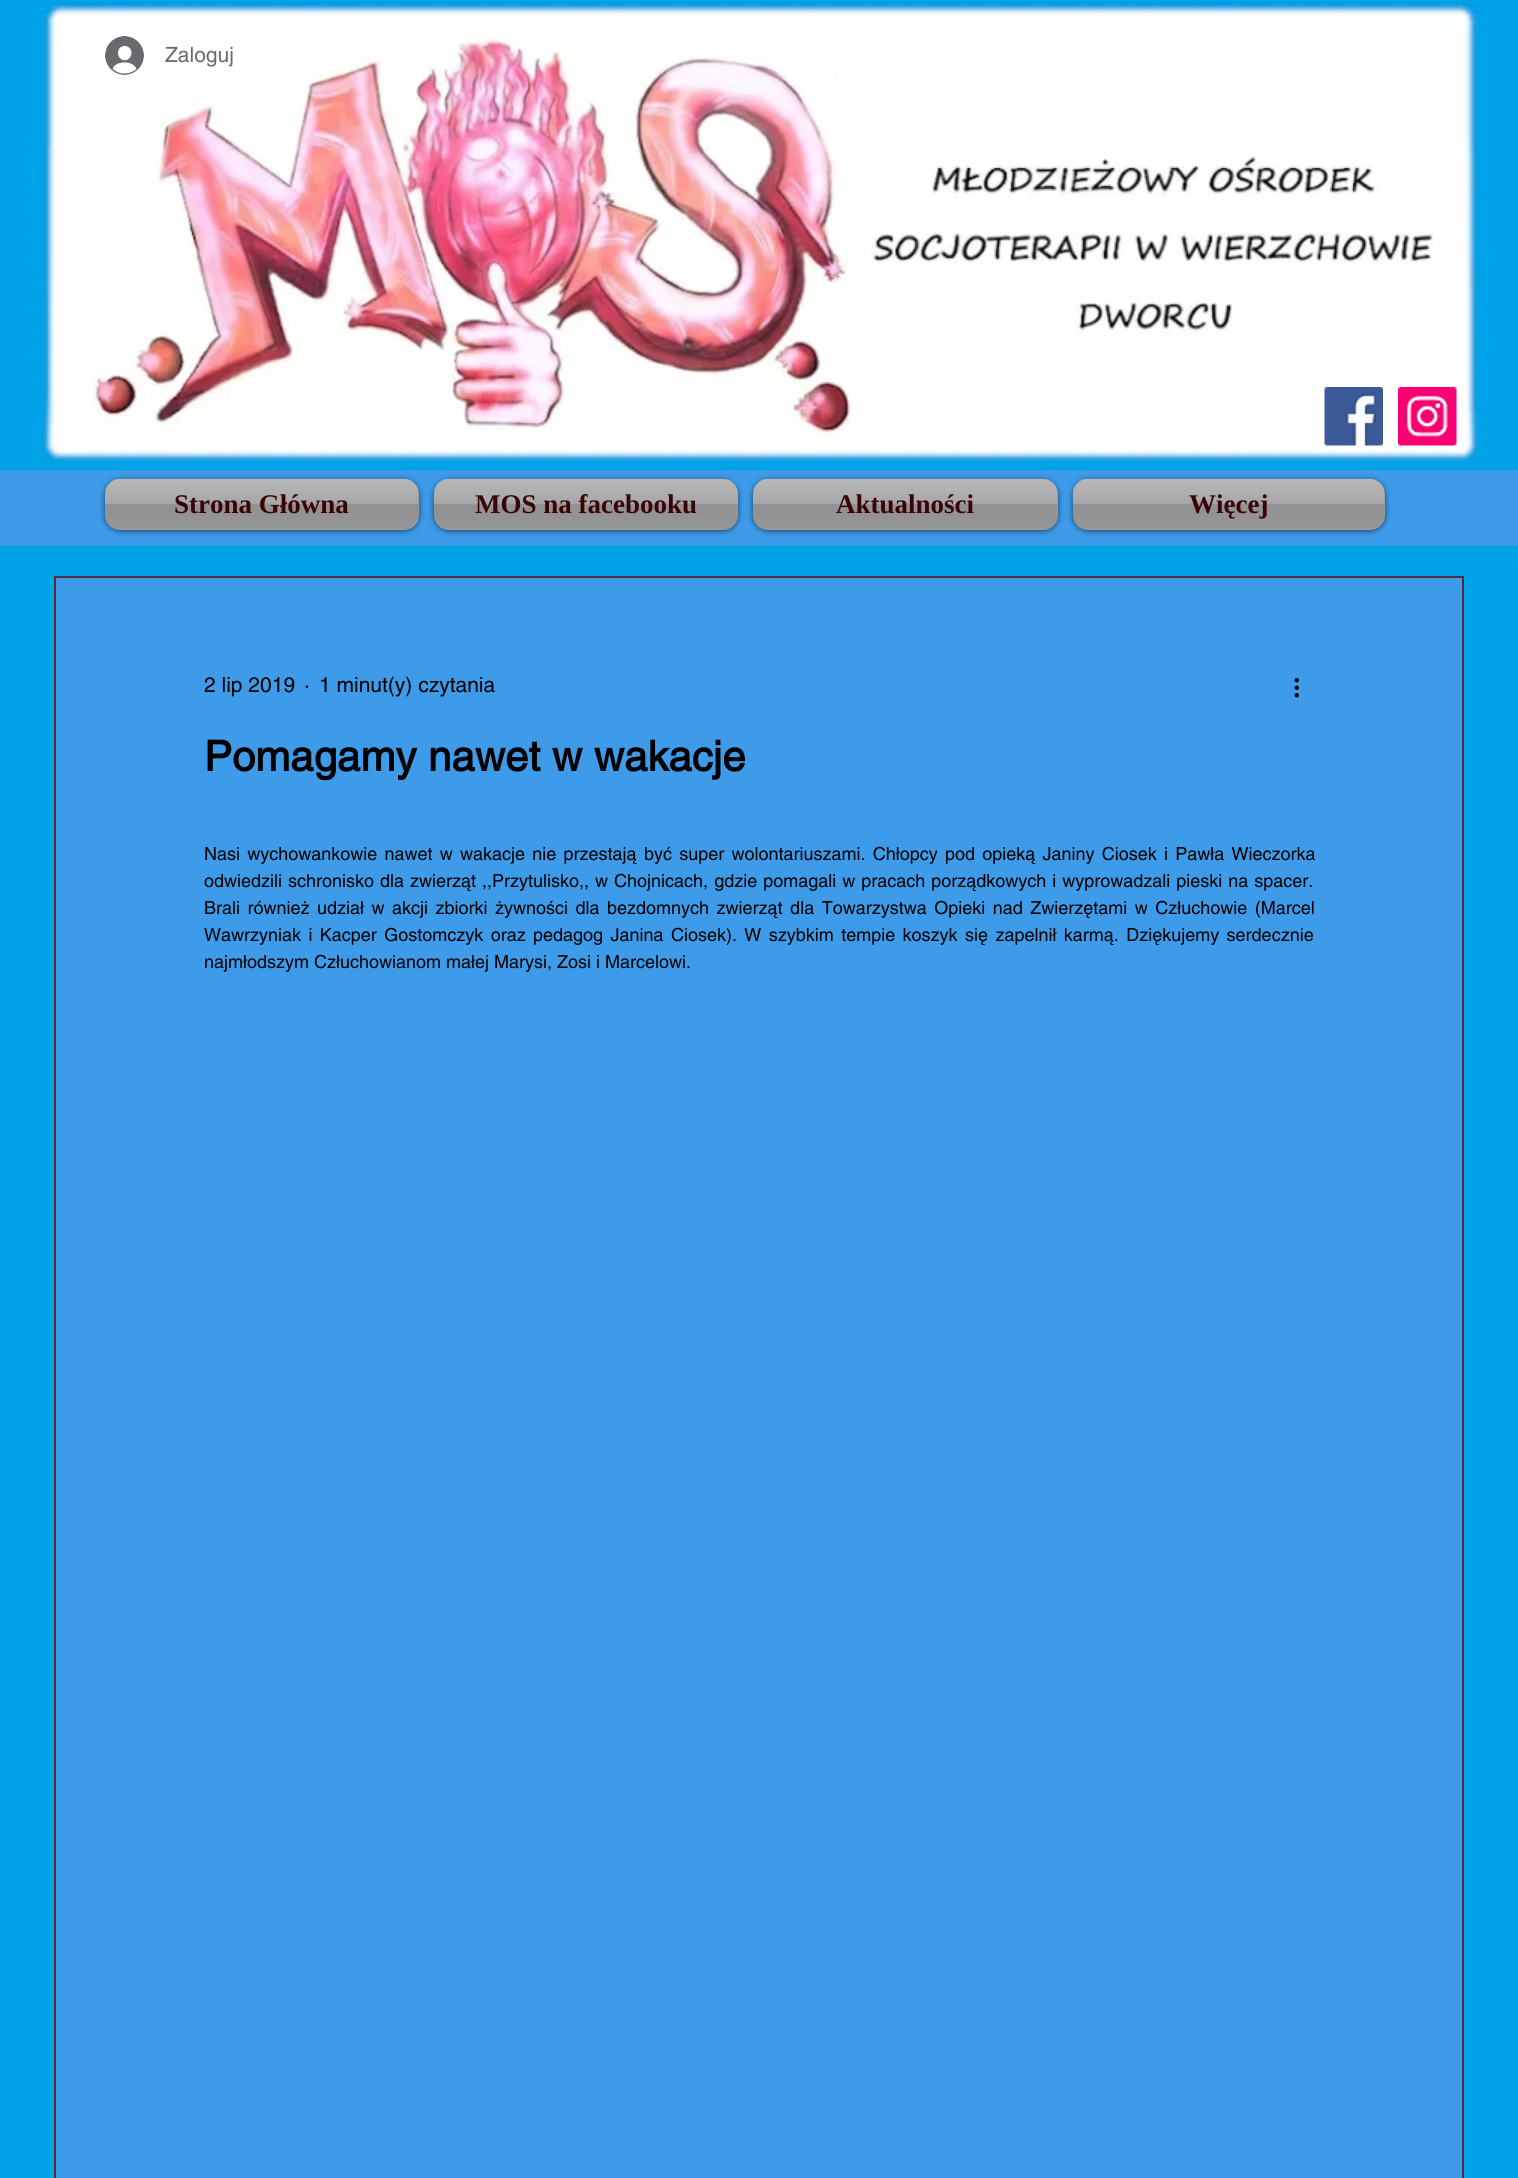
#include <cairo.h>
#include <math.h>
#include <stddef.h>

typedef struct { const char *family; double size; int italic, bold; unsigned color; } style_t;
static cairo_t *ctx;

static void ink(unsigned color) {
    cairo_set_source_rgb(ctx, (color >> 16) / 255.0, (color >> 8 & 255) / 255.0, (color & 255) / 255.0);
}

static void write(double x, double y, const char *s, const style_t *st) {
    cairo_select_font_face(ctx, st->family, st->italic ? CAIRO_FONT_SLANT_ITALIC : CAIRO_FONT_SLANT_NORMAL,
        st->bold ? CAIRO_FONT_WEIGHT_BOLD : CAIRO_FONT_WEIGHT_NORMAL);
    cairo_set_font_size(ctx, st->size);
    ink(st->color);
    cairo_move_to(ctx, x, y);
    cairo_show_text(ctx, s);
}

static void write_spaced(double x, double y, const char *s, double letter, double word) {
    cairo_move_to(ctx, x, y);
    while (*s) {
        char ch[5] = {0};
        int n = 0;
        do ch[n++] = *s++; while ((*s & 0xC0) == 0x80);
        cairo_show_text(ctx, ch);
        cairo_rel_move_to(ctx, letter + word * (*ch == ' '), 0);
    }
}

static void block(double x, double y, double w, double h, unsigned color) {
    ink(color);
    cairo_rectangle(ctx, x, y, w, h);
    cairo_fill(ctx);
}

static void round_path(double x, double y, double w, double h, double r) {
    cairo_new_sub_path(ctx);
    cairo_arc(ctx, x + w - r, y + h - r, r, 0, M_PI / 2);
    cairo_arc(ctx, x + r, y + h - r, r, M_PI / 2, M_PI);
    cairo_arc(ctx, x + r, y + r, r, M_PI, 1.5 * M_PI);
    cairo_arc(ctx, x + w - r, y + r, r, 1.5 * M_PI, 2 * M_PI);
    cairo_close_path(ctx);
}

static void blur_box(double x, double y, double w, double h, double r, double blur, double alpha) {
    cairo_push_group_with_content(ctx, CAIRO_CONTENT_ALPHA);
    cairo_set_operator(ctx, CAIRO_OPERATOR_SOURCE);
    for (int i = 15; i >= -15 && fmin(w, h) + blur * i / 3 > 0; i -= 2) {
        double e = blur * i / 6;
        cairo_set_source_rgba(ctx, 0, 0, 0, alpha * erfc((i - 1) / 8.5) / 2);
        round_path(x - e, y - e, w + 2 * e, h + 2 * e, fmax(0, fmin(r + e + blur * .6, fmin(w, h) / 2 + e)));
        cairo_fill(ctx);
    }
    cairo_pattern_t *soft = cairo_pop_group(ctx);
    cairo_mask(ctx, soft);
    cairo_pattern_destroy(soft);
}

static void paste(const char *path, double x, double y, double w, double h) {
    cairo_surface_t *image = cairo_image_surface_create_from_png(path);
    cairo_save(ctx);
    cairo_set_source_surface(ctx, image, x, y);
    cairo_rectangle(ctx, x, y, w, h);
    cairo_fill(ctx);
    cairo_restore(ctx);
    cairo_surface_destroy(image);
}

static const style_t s1 = {"helvetica", 21, 0, 0, 0x69696e};
static const style_t s2 = {"Liberation Serif", 27, 0, 1, 0x3a0404};
static const style_t s3 = {"helvetica", 21, 0, 0, 0x000000};
static const style_t s4 = {"helvetica", 42, 0, 1, 0x000000};
static const style_t s5 = {"helvetica", 18, 0, 0, 0x000000};

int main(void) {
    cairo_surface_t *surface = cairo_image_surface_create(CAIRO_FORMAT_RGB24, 1518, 2178);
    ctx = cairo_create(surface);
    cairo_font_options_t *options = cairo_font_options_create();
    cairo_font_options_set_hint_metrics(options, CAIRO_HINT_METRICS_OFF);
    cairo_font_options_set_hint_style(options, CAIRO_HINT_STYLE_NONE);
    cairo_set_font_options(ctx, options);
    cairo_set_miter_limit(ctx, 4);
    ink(0x00a3e8);
    cairo_paint(ctx);
    paste("pic1.png", 37, 0, 1442, 463);
    paste("pic2.png", 105, 36, 39, 39);
    write(165, 62, "Zaloguj", &s1);
    paste("pic3.png", 1324, 387, 59, 59);
    paste("pic4.png", 1398, 387, 59, 59);
    block(0, 470, 1518, 76, 0x3d9be9);
    ink(0x000000);
    blur_box(105, 480, 314, 51, 15, 3, 0.6);
    ink(0x9c9c9e);
    round_path(105, 479, 314, 51, 15);
    cairo_fill(ctx);
    paste("pic5.png", 105, 478, 314, 51);
    write(174, 513, "Strona Główna", &s2);
    ink(0x000000);
    blur_box(434, 480, 304, 51, 15, 3, 0.6);
    ink(0x9c9c9e);
    round_path(434, 479, 304, 51, 15);
    cairo_fill(ctx);
    paste("pic6.png", 433, 478, 305, 51);
    write(475, 513, "MOS na facebooku", &s2);
    ink(0x000000);
    blur_box(753, 480, 305, 51, 15, 3, 0.6);
    ink(0x9c9c9e);
    round_path(753, 479, 305, 51, 15);
    cairo_fill(ctx);
    paste("pic7.png", 753, 478, 305, 51);
    write(836, 513, "Aktualności", &s2);
    ink(0x000000);
    blur_box(1073, 480, 312, 51, 15, 3, 0.6);
    ink(0x9c9c9e);
    round_path(1073, 479, 312, 51, 15);
    cairo_fill(ctx);
    paste("pic8.png", 1072, 478, 313, 51);
    write(1189, 513, "Więcej", &s2);
    ink(0x3d9be9);
    cairo_rectangle(ctx, 55, 577, 1408, 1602);
    cairo_fill_preserve(ctx);
    ink(0x572b3e);
    cairo_stroke(ctx);
    write(204, 692, "2 lip 2019", &s3);
    write(304, 692, "·", &s3);
    write(319, 692, "1 minut(y) czytania", &s3);
    paste("pic9.png", 1294, 678, 5, 20);
    write(204, 771, "Pomagamy nawet w wakacje", &s4);
    cairo_select_font_face(ctx, "helvetica", CAIRO_FONT_SLANT_NORMAL, CAIRO_FONT_WEIGHT_NORMAL);
    cairo_set_font_size(ctx, 18);
    write_spaced(204, 860, "Nasi wychowankowie nawet w wakacje nie przestają być super wolontariuszami. Chłopcy pod opieką Janiny Ciosek i Pawła Wieczorka", 0, 2.25);
    write_spaced(204, 887, "odwiedzili schronisko dla zwierząt ,,Przytulisko,, w Chojnicach, gdzie pomagali w pracach porządkowych i wyprowadzali pieski na spacer.", 0, 1);
    write_spaced(204, 914, "Brali również udział w akcji zbiorki żywności dla bezdomnych zwierząt dla Towarzystwa Opieki nad Zwierzętami w Człuchowie (Marcel", 0, 2.5);
    write_spaced(204, 941, "Wawrzyniak i Kacper Gostomczyk oraz pedagog Janina Ciosek). W szybkim tempie koszyk się zapelnił karmą. Dziękujemy serdecznie", 0, 2.4);
    write(204, 968, "najmłodszym Człuchowianom małej Marysi, Zosi i Marcelowi.", &s5);
    cairo_surface_write_to_png(surface, "screenshot.png");
    cairo_font_options_destroy(options);
    cairo_destroy(ctx);
    cairo_surface_destroy(surface);
    return 0;
}
